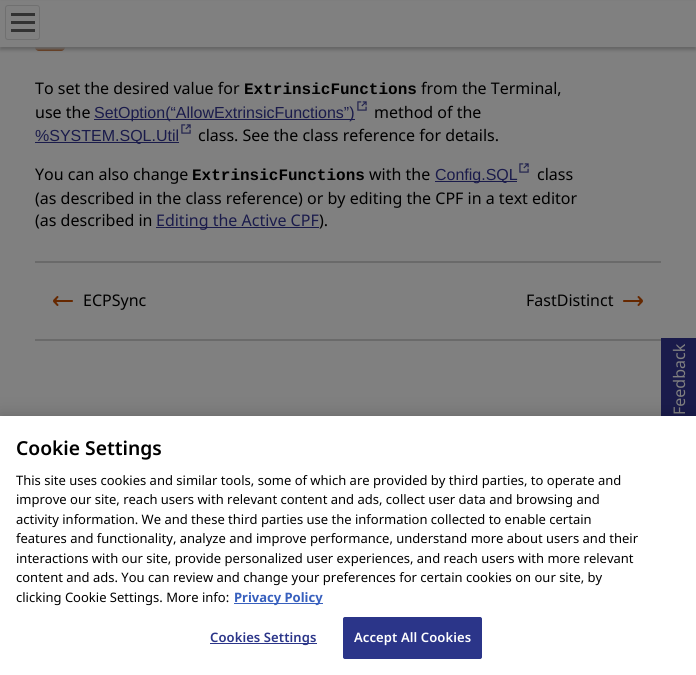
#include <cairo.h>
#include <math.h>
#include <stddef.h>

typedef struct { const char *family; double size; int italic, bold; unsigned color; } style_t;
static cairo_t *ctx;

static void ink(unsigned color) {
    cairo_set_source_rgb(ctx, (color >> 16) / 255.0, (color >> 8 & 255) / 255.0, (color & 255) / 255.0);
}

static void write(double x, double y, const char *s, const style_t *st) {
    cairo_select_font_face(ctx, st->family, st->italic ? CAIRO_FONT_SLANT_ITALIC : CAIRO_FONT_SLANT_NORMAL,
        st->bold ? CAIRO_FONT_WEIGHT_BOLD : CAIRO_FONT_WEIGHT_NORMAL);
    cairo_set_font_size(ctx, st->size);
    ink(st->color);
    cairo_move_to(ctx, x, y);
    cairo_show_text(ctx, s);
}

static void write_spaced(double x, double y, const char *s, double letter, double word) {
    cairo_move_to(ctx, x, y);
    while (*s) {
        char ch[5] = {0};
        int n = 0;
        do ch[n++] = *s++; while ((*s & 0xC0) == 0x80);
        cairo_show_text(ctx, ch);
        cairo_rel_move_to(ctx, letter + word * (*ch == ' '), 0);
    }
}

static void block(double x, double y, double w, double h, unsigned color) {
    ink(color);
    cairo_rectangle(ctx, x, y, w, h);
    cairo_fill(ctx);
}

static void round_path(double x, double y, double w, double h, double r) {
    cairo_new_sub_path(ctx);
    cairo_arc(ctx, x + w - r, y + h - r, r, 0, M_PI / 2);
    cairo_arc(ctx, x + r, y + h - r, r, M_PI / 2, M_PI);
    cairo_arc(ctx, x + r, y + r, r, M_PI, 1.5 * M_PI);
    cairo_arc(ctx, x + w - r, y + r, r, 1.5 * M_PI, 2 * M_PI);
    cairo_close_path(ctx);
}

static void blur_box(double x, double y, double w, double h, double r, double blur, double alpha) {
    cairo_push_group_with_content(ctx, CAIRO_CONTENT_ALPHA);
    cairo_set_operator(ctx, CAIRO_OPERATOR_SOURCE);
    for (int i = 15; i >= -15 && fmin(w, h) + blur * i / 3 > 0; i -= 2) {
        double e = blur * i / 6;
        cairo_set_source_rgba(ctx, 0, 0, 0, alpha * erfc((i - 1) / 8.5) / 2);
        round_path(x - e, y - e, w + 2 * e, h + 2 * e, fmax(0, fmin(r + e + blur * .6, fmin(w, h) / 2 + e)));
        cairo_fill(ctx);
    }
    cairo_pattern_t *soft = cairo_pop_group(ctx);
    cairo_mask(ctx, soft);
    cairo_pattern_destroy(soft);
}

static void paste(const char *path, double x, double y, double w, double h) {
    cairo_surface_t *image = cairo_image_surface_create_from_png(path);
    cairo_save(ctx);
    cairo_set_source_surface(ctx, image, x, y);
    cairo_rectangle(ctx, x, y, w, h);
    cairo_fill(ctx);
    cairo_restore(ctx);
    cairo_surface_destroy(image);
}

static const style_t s1 = {"Noto Sans", 16, 0, 0, 0x000000};
static const style_t s2 = {"Liberation Mono", 16, 0, 1, 0x000000};
static const style_t s3 = {"Liberation Sans", 16, 0, 0, 0x1a1b4b};
static const style_t s4 = {"Noto Sans", 16, 0, 0, 0x1a1b4b};
static const style_t s5 = {"Noto Sans", 16, 0, 0, 0x808080};
static const style_t s6 = {"Noto Sans SemiBold", 19.25, 0, 0, 0x000000};
static const style_t s7 = {"Noto Sans", 13, 0, 0, 0x000000};
static const style_t s8 = {"Noto Sans", 13, 0, 1, 0x3860be};

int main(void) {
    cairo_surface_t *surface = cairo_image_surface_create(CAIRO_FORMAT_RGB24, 696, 675);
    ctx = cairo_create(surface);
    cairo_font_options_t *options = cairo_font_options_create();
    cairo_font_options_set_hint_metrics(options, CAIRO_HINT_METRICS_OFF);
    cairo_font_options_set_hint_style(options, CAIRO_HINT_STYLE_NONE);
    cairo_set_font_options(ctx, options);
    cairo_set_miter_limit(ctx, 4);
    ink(0x808080);
    cairo_paint(ctx);
    paste("pic2.png", 35, 47, 30, 4);
    ink(0x666666);
    blur_box(0, 3, 696, 47, 0, 1.5, 1);
    block(0, 1, 696, 46, 0x808080);
    round_path(5.5, 5.5, 34, 34, 2.5);
    ink(0x707070);
    cairo_set_line_width(ctx, 1);
    cairo_stroke(ctx);
    paste("pic1.png", 11, 13, 24, 19);
    write(35, 94, "To set the desired value for", &s1);
    write(244, 94, "ExtrinsicFunctions", &s2);
    write(421, 94, "from the Terminal,", &s1);
    write(35, 118, "use the", &s1);
    block(94, 119, 261, 1, 0x1a1b4b);
    write(94, 118, "SetOption(“AllowExtrinsicFunctions”)", &s3);
    paste("pic3.png", 357, 101, 10, 10);
    write(374, 118, "method of the", &s1);
    block(35, 142, 144, 1, 0x1a1b4b);
    write(35, 141, "%SYSTEM.SQL.Util", &s3);
    paste("pic3.png", 181, 124, 10, 10);
    write(198, 141, "class. See the class reference for details.", &s1);
    write(35, 180, "You can also change", &s1);
    write(192, 180, "ExtrinsicFunctions", &s2);
    write(369, 180, "with the", &s1);
    block(435, 181, 82, 1, 0x1a1b4b);
    write(435, 180, "Config.SQL", &s3);
    paste("pic3.png", 519, 163, 10, 10);
    write(537, 180, "class", &s1);
    write(35, 204, "(as described in the class reference) or by editing the CPF in a text editor", &s1);
    write(35, 226, "(as described in", &s1);
    block(156, 227, 163, 1, 0x1a1b4b);
    write(156, 226, "Editing the Active CPF", &s4);
    write(319, 226, ").", &s1);
    block(35, 261, 626, 2, 0x6a6a6a);
    block(35, 339, 626, 2, 0x6a6a6a);
    paste("pic4.png", 53, 296, 20, 10);
    write(83, 306, "ECPSync", &s1);
    write(526, 306, "FastDistinct", &s1);
    paste("pic5.png", 623, 296, 20, 10);
    block(661, 338, 35, 78, 0x1a1b4b);
    cairo_save(ctx);
    cairo_translate(ctx, 685, 415);
    cairo_rotate(ctx, -90 * M_PI / 180);
    write(0, 0, "Feedback", &s5);
    cairo_restore(ctx);
    ink(0x000000);
    blur_box(0, 416, 696, 259, 0, 9, 0.2);
    block(0, 416, 696, 259, 0xffffff);
    write(16, 455, "Cookie Settings", &s6);
    write(16, 485, "This site uses cookies and similar tools, some of which are provided by third parties, to operate and", &s7);
    write(16, 504, "improve our site, reach users with relevant content and ads, collect user data and browsing and", &s7);
    write(16, 524, "activity information. We and these third parties use the information collected to enable certain", &s7);
    write(16, 543, "features and functionality, analyze and improve performance, understand more about users and their", &s7);
    write(16, 563, "interactions with our site, provide personalized user experiences, and reach users with more relevant", &s7);
    write(16, 582, "content and ads. You can review and change your preferences for certain cookies on our site, by", &s7);
    write(16, 602, "clicking Cookie Settings. More info:", &s7);
    block(234, 603, 89, 1, 0x3860be);
    write(234, 602, "Privacy Policy", &s8);
    block(210, 643, 107, 1, 0x2b3589);
    cairo_select_font_face(ctx, "Noto Sans SemiBold", CAIRO_FONT_SLANT_NORMAL, CAIRO_FONT_WEIGHT_NORMAL);
    write_spaced(210, 642, "Cookies Settings", 0.1, 0);
    round_path(343.5, 617.5, 138, 41, 1.5);
    cairo_fill_preserve(ctx);
    cairo_stroke(ctx);
    ink(0xffffff);
    write_spaced(354, 642, "Accept All Cookies", 0.1, 0);
    cairo_surface_write_to_png(surface, "screenshot.png");
    cairo_font_options_destroy(options);
    cairo_destroy(ctx);
    cairo_surface_destroy(surface);
    return 0;
}
